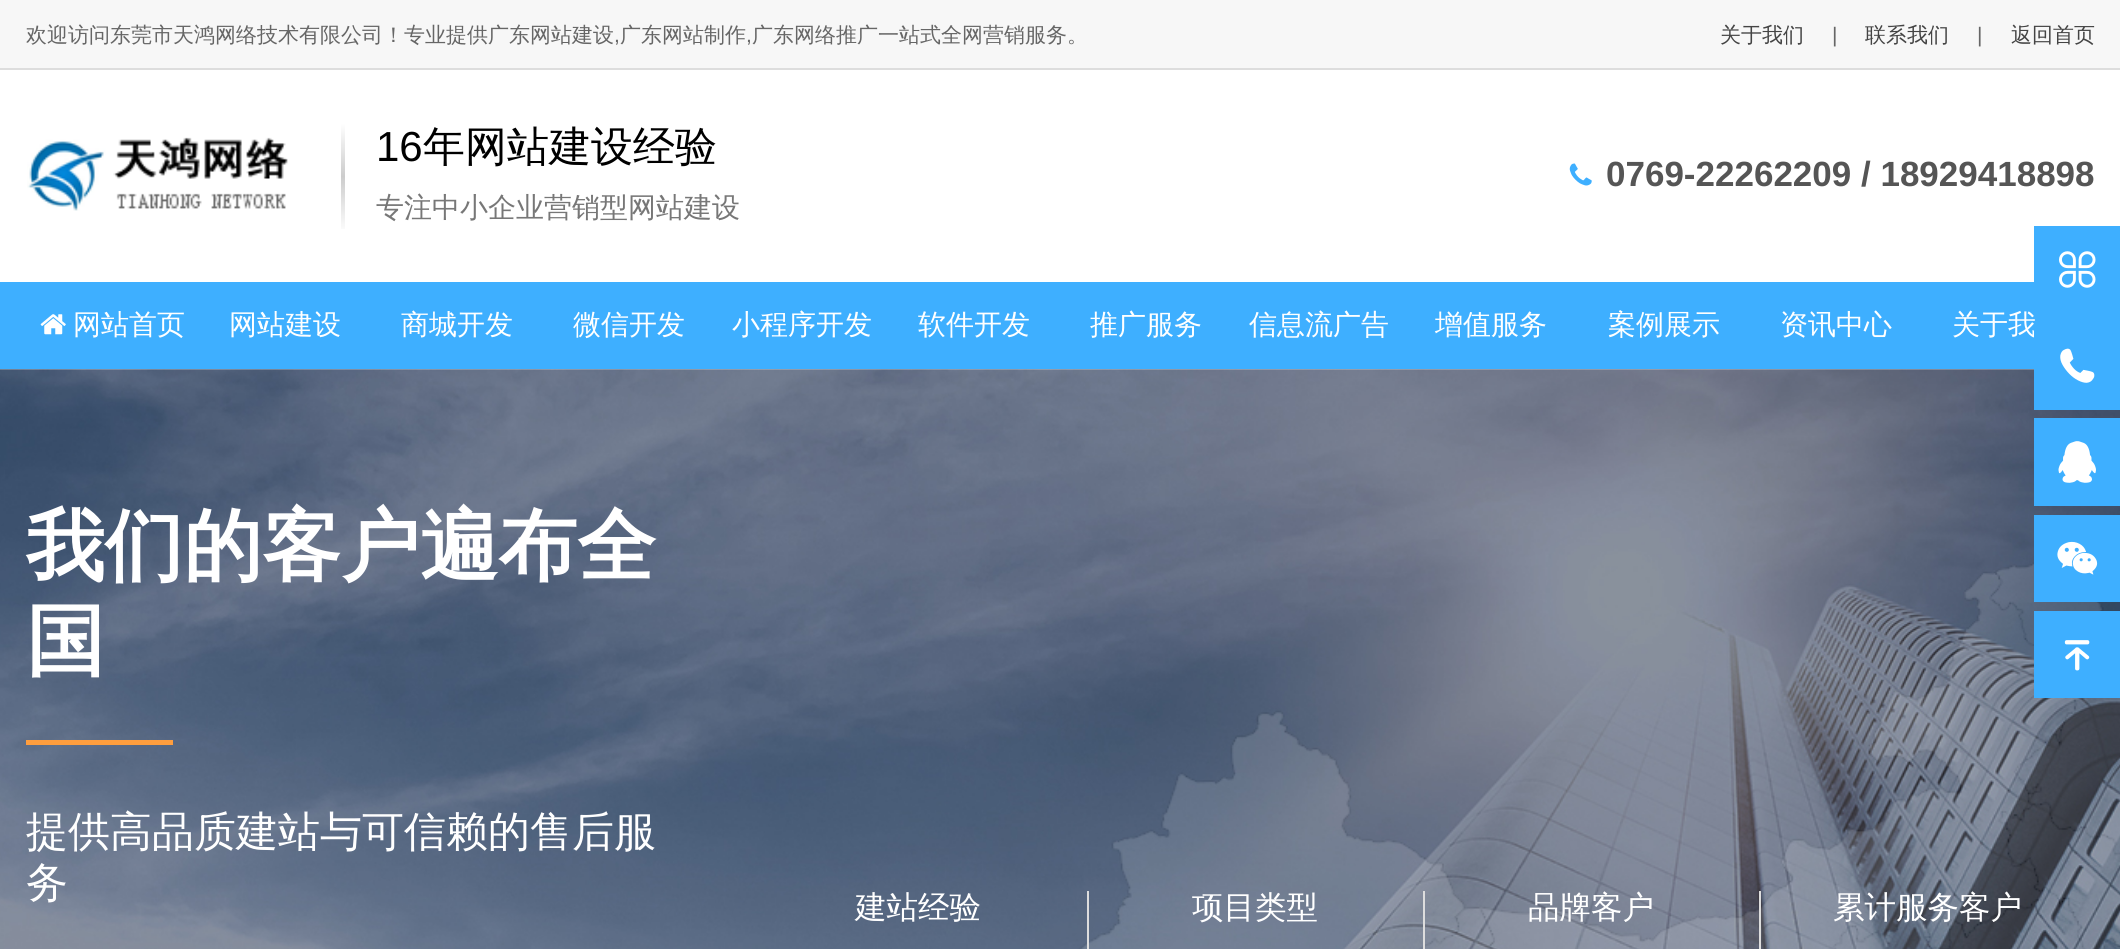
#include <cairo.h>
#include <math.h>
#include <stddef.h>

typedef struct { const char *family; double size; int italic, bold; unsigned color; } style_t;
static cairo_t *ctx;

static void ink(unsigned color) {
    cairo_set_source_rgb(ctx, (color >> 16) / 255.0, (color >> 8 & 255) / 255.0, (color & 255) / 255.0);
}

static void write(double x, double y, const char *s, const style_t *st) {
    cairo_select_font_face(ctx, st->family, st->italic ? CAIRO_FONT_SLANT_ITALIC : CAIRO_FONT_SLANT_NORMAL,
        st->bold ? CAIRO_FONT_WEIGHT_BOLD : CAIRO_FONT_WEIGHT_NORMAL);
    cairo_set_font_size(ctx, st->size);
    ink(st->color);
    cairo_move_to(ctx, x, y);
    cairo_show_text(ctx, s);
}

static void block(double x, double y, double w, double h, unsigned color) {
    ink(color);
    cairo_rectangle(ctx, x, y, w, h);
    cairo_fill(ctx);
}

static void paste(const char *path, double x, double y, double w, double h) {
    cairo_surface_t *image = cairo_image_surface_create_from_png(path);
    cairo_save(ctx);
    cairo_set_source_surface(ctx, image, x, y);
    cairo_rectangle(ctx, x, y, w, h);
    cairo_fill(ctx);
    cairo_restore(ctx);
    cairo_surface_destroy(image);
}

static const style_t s1 = {"WenQuanYi Zen Hei Medium", 21, 0, 0, 0x666666};
static const style_t s2 = {"Liberation Sans", 21, 0, 0, 0x666666};
static const style_t s3 = {"WenQuanYi Zen Hei Medium", 21, 0, 0, 0x444444};
static const style_t s4 = {"Liberation Sans", 42, 0, 0, 0x000000};
static const style_t s5 = {"WenQuanYi Zen Hei Medium", 42, 0, 0, 0x000000};
static const style_t s6 = {"WenQuanYi Zen Hei Medium", 28, 0, 0, 0x777777};
static const style_t s7 = {"Liberation Sans", 35, 0, 1, 0x555555};
static const style_t s8 = {"WenQuanYi Zen Hei Medium", 28, 0, 0, 0xffffff};
static const style_t s9 = {"WenQuanYi Zen Hei", 78.75, 0, 1, 0xffffff};
static const style_t s10 = {"WenQuanYi Zen Hei Medium", 42, 0, 0, 0xffffff};
static const style_t s11 = {"WenQuanYi Zen Hei Medium", 31.5, 0, 0, 0xffffff};

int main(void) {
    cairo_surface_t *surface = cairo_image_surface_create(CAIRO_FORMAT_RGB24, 2120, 949);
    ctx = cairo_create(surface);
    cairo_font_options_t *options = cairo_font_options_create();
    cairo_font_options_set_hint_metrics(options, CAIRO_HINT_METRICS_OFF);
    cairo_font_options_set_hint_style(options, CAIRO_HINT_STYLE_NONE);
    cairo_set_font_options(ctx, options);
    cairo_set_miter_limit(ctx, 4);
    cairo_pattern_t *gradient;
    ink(0xffffff);
    cairo_paint(ctx);
    block(0, 0, 2120, 68, 0xf7f7f7);
    block(0, 68, 2120, 2, 0xdddddd);
    write(26, 42, "欢迎访问东莞市天鸿网络技术有限公司！专业提供广东网站建设", &s1);
    write(614, 42, ",", &s2);
    write(620, 42, "广东网站制作", &s1);
    write(746, 42, ",", &s2);
    write(752, 42, "广东网络推广一站式全网营销服务。", &s1);
    write(1720, 42, "关于我们", &s3);
    write(1832, 42, "|", &s2);
    write(1865, 42, "联系我们", &s3);
    write(1977, 42, "|", &s2);
    write(2011, 42, "返回首页", &s3);
    paste("pic1.png", 27, 137, 261, 74);
    gradient = cairo_pattern_create_linear(343, 234, 343, 123);
    cairo_pattern_add_color_stop_rgba(gradient, 0, 1, 1, 1, 1);
    cairo_pattern_add_color_stop_rgba(gradient, 0.52, 0.8, 0.8, 0.8, 1);
    cairo_pattern_add_color_stop_rgba(gradient, 1, 1, 1, 1, 1);
    cairo_set_source(ctx, gradient);
    cairo_pattern_destroy(gradient);
    cairo_rectangle(ctx, 341, 123, 4, 106);
    cairo_fill(ctx);
    write(376, 161, "16", &s4);
    write(423, 161, "年网站建设经验", &s5);
    write(376, 217, "专注中小企业营销型网站建设", &s6);
    paste("pic2.png", 1569, 163, 23, 23);
    write(1606, 186, "0769-22262209 / 18929418898", &s7);
    block(0, 282, 2120, 87, 0x3eafff);
    paste("pic3.png", 40, 314, 26, 21);
    write(73, 334, "网站首页", &s8);
    write(229, 334, "网站建设", &s8);
    write(401, 334, "商城开发", &s8);
    write(573, 334, "微信开发", &s8);
    write(732, 334, "小程序开发", &s8);
    write(918, 334, "软件开发", &s8);
    write(1090, 334, "推广服务", &s8);
    write(1249, 334, "信息流广告", &s8);
    write(1435, 334, "增值服务", &s8);
    write(1608, 334, "案例展示", &s8);
    write(1780, 334, "资讯中心", &s8);
    write(1952, 334, "关于我", &s8);
    paste("pic4.png", 0, 369, 2120, 580);
    write(26, 573, "我们的客户遍布全", &s9);
    write(26, 668, "国", &s9);
    block(26, 740, 147, 5, 0xff9e3e);
    write(26, 846, "提供高品质建站与可信赖的售后服", &s10);
    write(26, 897, "务", &s10);
    write(855, 918, "建站经验", &s11);
    block(1087, 891, 2, 58, 0xdddddd);
    write(1192, 918, "项目类型", &s11);
    block(1423, 891, 2, 58, 0xdddddd);
    write(1528, 918, "品牌客户", &s11);
    block(1759, 891, 2, 58, 0xdddddd);
    write(1833, 918, "累计服务客户", &s11);
    block(2034, 226, 86, 56, 0x3eafff);
    paste("pic5.png", 2059, 251, 37, 37);
    block(2034, 323, 86, 87, 0x3eafff);
    paste("pic6.png", 2060, 348, 35, 35);
    block(2034, 418, 86, 88, 0x3eafff);
    paste("pic7.png", 2058, 441, 38, 42);
    block(2034, 515, 86, 87, 0x3eafff);
    paste("pic8.png", 2057, 541, 41, 34);
    block(2034, 611, 86, 87, 0x3eafff);
    paste("pic9.png", 2064, 640, 26, 31);
    cairo_surface_write_to_png(surface, "screenshot.png");
    cairo_font_options_destroy(options);
    cairo_destroy(ctx);
    cairo_surface_destroy(surface);
    return 0;
}
